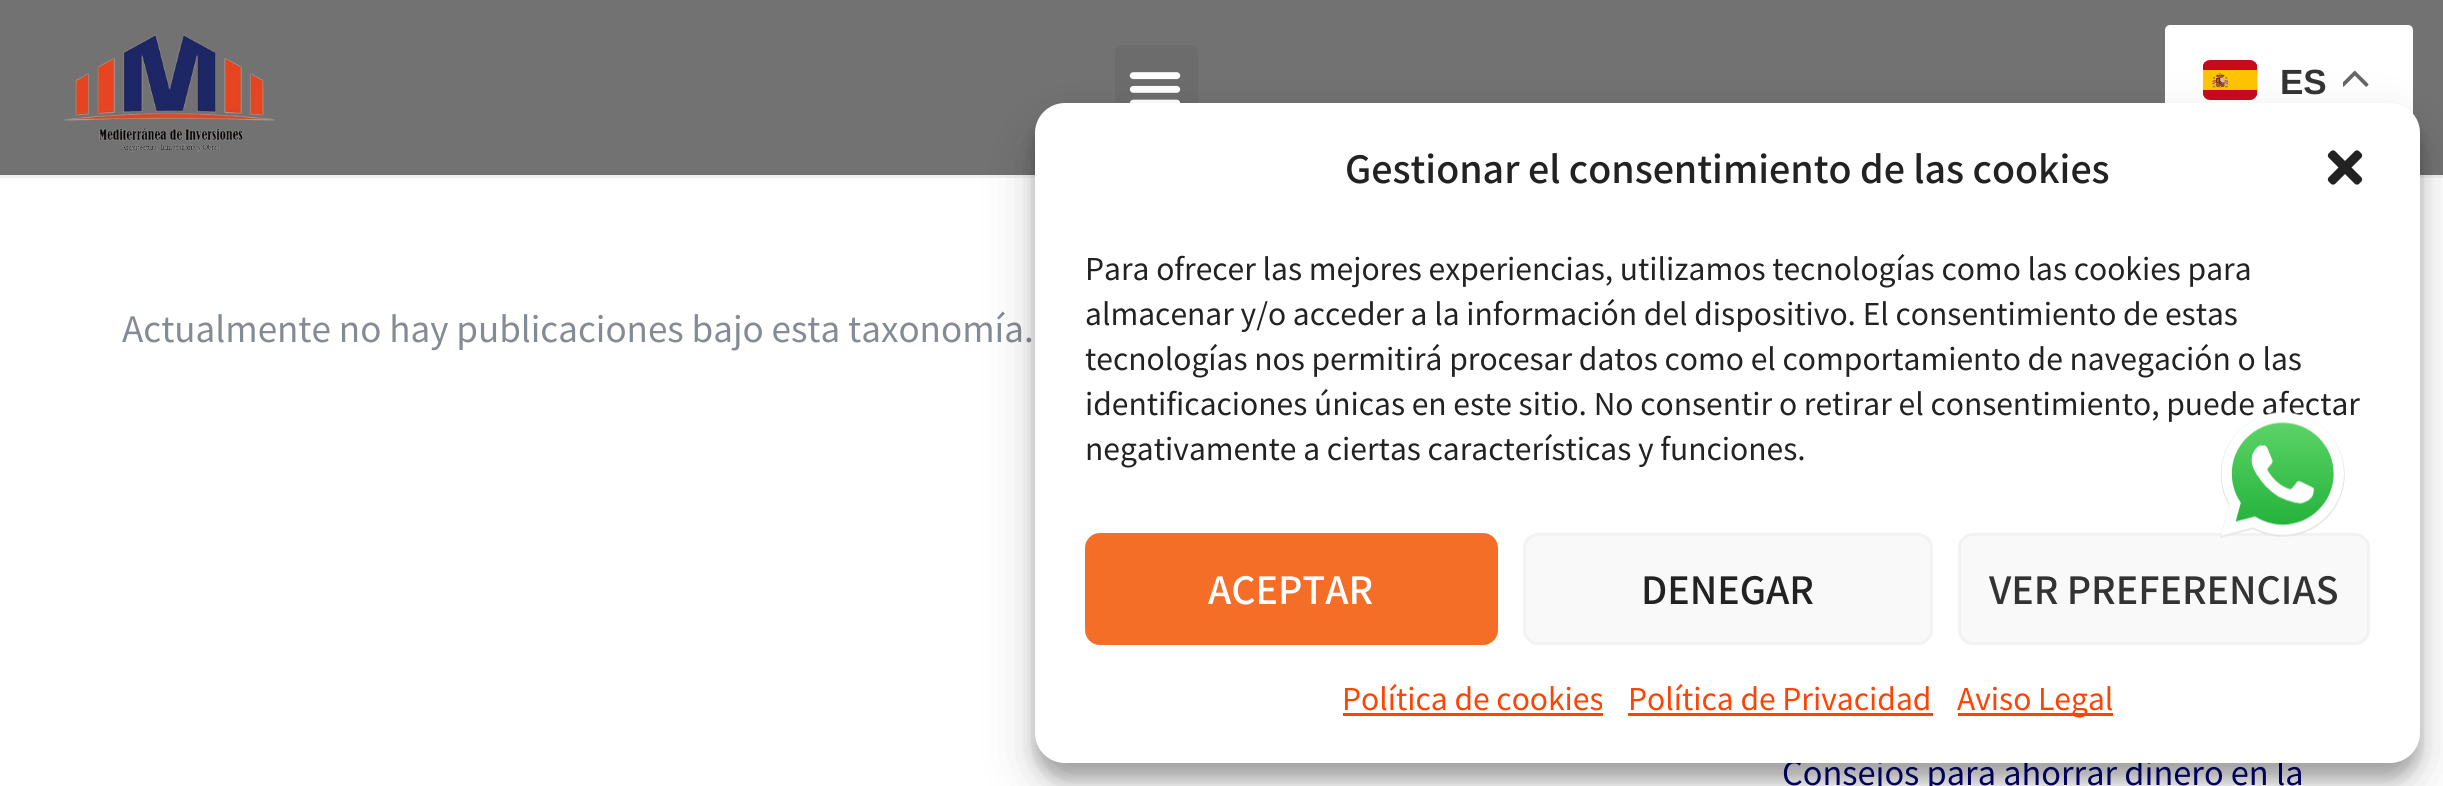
#include <cairo.h>
#include <math.h>
#include <stddef.h>

typedef struct { const char *family; double size; int italic, bold; unsigned color; } style_t;
static cairo_t *ctx;

static void ink(unsigned color) {
    cairo_set_source_rgb(ctx, (color >> 16) / 255.0, (color >> 8 & 255) / 255.0, (color & 255) / 255.0);
}

static void write(double x, double y, const char *s, const style_t *st) {
    cairo_select_font_face(ctx, st->family, st->italic ? CAIRO_FONT_SLANT_ITALIC : CAIRO_FONT_SLANT_NORMAL,
        st->bold ? CAIRO_FONT_WEIGHT_BOLD : CAIRO_FONT_WEIGHT_NORMAL);
    cairo_set_font_size(ctx, st->size);
    ink(st->color);
    cairo_move_to(ctx, x, y);
    cairo_show_text(ctx, s);
}

static void block(double x, double y, double w, double h, unsigned color) {
    ink(color);
    cairo_rectangle(ctx, x, y, w, h);
    cairo_fill(ctx);
}

static void round_path(double x, double y, double w, double h, double r) {
    cairo_new_sub_path(ctx);
    cairo_arc(ctx, x + w - r, y + h - r, r, 0, M_PI / 2);
    cairo_arc(ctx, x + r, y + h - r, r, M_PI / 2, M_PI);
    cairo_arc(ctx, x + r, y + r, r, M_PI, 1.5 * M_PI);
    cairo_arc(ctx, x + w - r, y + r, r, 1.5 * M_PI, 2 * M_PI);
    cairo_close_path(ctx);
}

static void blur_box(double x, double y, double w, double h, double r, double blur, double alpha) {
    cairo_push_group_with_content(ctx, CAIRO_CONTENT_ALPHA);
    cairo_set_operator(ctx, CAIRO_OPERATOR_SOURCE);
    for (int i = 15; i >= -15 && fmin(w, h) + blur * i / 3 > 0; i -= 2) {
        double e = blur * i / 6;
        cairo_set_source_rgba(ctx, 0, 0, 0, alpha * erfc((i - 1) / 8.5) / 2);
        round_path(x - e, y - e, w + 2 * e, h + 2 * e, fmax(0, fmin(r + e + blur * .6, fmin(w, h) / 2 + e)));
        cairo_fill(ctx);
    }
    cairo_pattern_t *soft = cairo_pop_group(ctx);
    cairo_mask(ctx, soft);
    cairo_pattern_destroy(soft);
}

static void paste(const char *path, double x, double y, double w, double h) {
    cairo_surface_t *image = cairo_image_surface_create_from_png(path);
    cairo_save(ctx);
    cairo_set_source_surface(ctx, image, x, y);
    cairo_rectangle(ctx, x, y, w, h);
    cairo_fill(ctx);
    cairo_restore(ctx);
    cairo_surface_destroy(image);
}

static const style_t s1 = {"Liberation Sans", 35, 0, 1, 0x333333};
static const style_t s2 = {"Noto Sans JP", 35, 0, 0, 0x858b94};
static const style_t s3 = {"Noto Sans JP", 32.5, 0, 0, 0x020076};
static const style_t s4 = {"Noto Sans JP Medium", 37.5, 0, 0, 0x222222};
static const style_t s5 = {"Noto Sans JP", 30, 0, 0, 0x222222};
static const style_t s6 = {"Noto Sans JP Medium", 37.5, 0, 0, 0xffffff};
static const style_t s7 = {"Noto Sans JP Medium", 37.5, 0, 0, 0x333333};
static const style_t s8 = {"Noto Sans JP", 30, 0, 0, 0xff4303};

int main(void) {
    cairo_surface_t *surface = cairo_image_surface_create(CAIRO_FORMAT_RGB24, 2443, 786);
    ctx = cairo_create(surface);
    cairo_font_options_t *options = cairo_font_options_create();
    cairo_font_options_set_hint_metrics(options, CAIRO_HINT_METRICS_OFF);
    cairo_font_options_set_hint_style(options, CAIRO_HINT_STYLE_NONE);
    cairo_set_font_options(ctx, options);
    cairo_set_miter_limit(ctx, 4);
    ink(0xffffff);
    cairo_paint(ctx);
    block(0, 175, 2443, 3, 0xf1f1f1);
    block(0, 0, 2443, 175, 0x727272);
    paste("pic1.png", 64, 34, 211, 118);
    ink(0x6c6c6c);
    round_path(1115, 45, 83, 83, 8);
    cairo_fill(ctx);
    paste("pic2.png", 1129, 72, 52, 31);
    ink(0xffffff);
    round_path(2165, 25, 248, 110, 5);
    cairo_fill(ctx);
    paste("pic3.png", 2203, 60, 55, 40);
    write(2280, 94, "ES", &s1);
    paste("pic4.png", 2343, 70, 26, 17);
    write(122, 342, "Actualmente no hay publicaciones bajo esta taxonomía.", &s2);
    write(1782, 785, "Consejos para ahorrar dinero en la", &s3);
    ink(0x000000);
    blur_box(1035, 118, 1385, 660, 30, 7.5, 0.23);
    blur_box(1035, 128, 1385, 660, 30, 25, 0.19);
    ink(0xffffff);
    round_path(1035, 103, 1385, 660, 30);
    cairo_fill(ctx);
    write(1345, 183, "Gestionar el consentimiento de las cookies", &s4);
    paste("pic5.png", 2327, 150, 36, 35);
    write(1085, 280, "Para ofrecer las mejores experiencias, utilizamos tecnologías como las cookies para", &s5);
    write(1085, 325, "almacenar y/o acceder a la información del dispositivo. El consentimiento de estas", &s5);
    write(1085, 370, "tecnologías nos permitirá procesar datos como el comportamiento de navegación o las", &s5);
    write(1085, 415, "identificaciones únicas en este sitio. No consentir o retirar el consentimiento, puede afectar", &s5);
    write(1085, 460, "negativamente a ciertas características y funciones.", &s5);
    ink(0xf56e28);
    round_path(1086.5, 534.5, 410, 109, 13.5);
    cairo_fill_preserve(ctx);
    cairo_set_line_width(ctx, 3);
    cairo_stroke(ctx);
    write(1208, 604, "ACEPTAR", &s6);
    ink(0xf9f9f9);
    round_path(1524.5, 534.5, 407, 109, 13.5);
    cairo_fill_preserve(ctx);
    ink(0xf2f2f2);
    cairo_stroke(ctx);
    write(1641, 604, "DENEGAR", &s4);
    ink(0xf9f9f9);
    round_path(1959.5, 534.5, 409, 109, 13.5);
    cairo_fill_preserve(ctx);
    ink(0xf2f2f2);
    cairo_stroke(ctx);
    write(1989, 604, "VER PREFERENCIAS", &s7);
    write(1342, 710, "Política de cookies", &s8);
    block(1343, 713, 260, 3, 0xff4303);
    write(1628, 710, "Política de Privacidad", &s8);
    block(1628, 713, 305, 3, 0xff4303);
    block(1958, 713, 155, 3, 0xff4303);
    write(1957, 710, "Aviso Legal", &s8);
    paste("pic6.png", 2220, 412, 125, 126);
    cairo_surface_write_to_png(surface, "screenshot.png");
    cairo_font_options_destroy(options);
    cairo_destroy(ctx);
    cairo_surface_destroy(surface);
    return 0;
}
